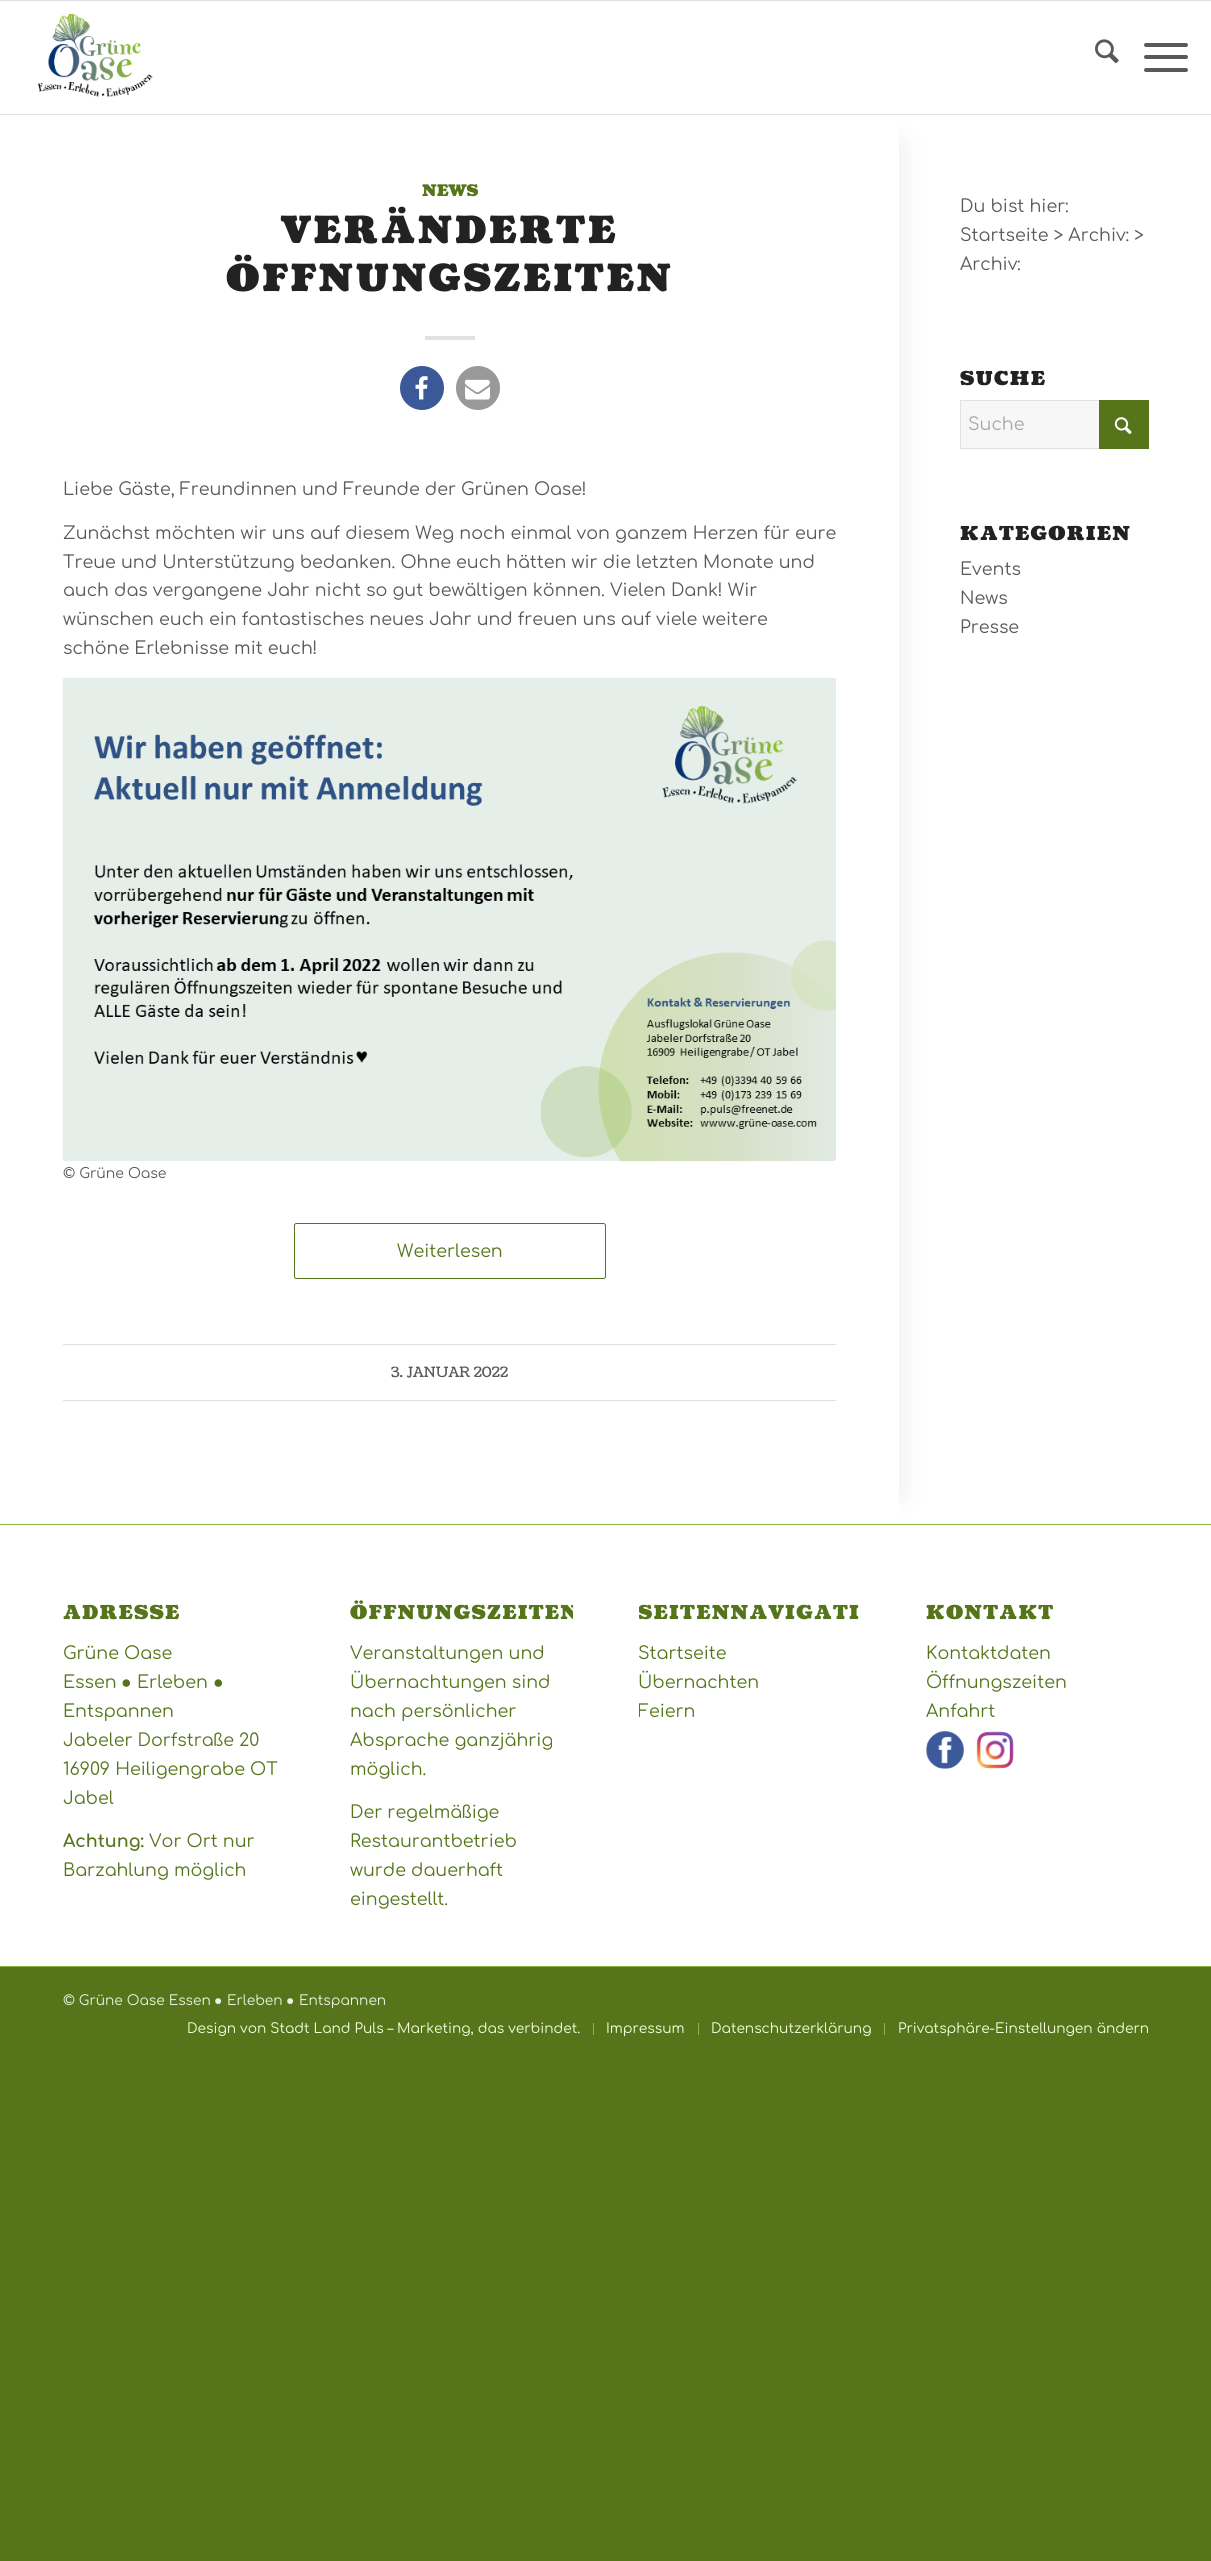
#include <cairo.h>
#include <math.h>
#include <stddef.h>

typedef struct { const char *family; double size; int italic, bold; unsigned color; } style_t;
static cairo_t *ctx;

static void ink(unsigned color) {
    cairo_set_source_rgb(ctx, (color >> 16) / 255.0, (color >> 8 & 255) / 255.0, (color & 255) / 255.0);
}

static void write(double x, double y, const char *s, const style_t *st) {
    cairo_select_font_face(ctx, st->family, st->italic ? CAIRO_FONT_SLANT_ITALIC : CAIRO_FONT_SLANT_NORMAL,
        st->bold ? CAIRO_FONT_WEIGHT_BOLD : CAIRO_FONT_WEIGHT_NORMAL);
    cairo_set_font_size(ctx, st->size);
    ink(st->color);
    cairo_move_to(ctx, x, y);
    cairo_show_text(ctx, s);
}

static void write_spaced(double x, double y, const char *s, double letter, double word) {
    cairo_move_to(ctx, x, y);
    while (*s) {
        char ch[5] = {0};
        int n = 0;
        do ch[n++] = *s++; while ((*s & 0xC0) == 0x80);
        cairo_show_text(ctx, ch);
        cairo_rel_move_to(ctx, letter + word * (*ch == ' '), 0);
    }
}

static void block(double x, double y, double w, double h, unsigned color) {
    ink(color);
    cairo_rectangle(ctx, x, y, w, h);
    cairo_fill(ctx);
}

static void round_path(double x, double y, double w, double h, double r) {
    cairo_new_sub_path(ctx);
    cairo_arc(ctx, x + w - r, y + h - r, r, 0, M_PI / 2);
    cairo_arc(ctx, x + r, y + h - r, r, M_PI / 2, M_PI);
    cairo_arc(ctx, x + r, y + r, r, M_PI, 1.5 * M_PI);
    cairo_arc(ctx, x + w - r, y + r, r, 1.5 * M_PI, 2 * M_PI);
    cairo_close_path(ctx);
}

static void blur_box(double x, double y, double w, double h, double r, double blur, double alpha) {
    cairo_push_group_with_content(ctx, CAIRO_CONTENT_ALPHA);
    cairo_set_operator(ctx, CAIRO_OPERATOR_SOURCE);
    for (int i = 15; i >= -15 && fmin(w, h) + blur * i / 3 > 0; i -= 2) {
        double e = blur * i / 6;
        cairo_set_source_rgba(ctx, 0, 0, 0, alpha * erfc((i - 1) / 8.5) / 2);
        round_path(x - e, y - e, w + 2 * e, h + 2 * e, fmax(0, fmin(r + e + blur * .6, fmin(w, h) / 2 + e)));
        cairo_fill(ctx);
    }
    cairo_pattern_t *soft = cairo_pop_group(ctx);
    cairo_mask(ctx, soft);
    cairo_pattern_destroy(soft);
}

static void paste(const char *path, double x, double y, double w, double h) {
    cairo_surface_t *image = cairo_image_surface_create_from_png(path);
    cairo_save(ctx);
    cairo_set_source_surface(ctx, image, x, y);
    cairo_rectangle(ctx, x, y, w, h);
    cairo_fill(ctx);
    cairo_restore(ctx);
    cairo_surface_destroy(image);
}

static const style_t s1 = {"Coustard Black", 16, 0, 0, 0x56751b};
static const style_t s2 = {"Comfortaa", 17.5, 0, 0, 0x595959};
static const style_t s3 = {"Comfortaa", 14, 0, 0, 0x595959};
static const style_t s4 = {"Comfortaa", 17.5, 0, 0, 0x56751b};
static const style_t s5 = {"Coustard", 14.25, 0, 0, 0x595959};
static const style_t s6 = {"Comfortaa", 17.5, 0, 0, 0xa8a8a8};
static const style_t s7 = {"Liberation Sans", 17.5, 0, 0, 0x56751b};
static const style_t s8 = {"Comfortaa", 17.5, 0, 1, 0x56751b};
static const style_t s9 = {"Comfortaa", 13.75, 0, 0, 0xecf2e1};
static const style_t s10 = {"Liberation Sans", 13.75, 0, 0, 0xecf2e1};
static const style_t s11 = {"Comfortaa", 13.75, 0, 0, 0xf3ffde};

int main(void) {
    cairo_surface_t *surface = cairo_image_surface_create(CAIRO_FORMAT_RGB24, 1211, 2561);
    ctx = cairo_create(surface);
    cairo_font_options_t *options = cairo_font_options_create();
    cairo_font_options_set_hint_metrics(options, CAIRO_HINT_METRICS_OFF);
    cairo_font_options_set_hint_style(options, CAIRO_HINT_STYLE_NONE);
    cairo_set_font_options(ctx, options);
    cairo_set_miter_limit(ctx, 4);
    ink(0x56751b);
    cairo_paint(ctx);
    block(0, 1, 1211, 1965, 0xffffff);
    block(0, 0, 1211, 1, 0xe1e1e1);
    cairo_save(ctx);
    cairo_set_fill_rule(ctx, CAIRO_FILL_RULE_EVEN_ODD);
    cairo_new_path(ctx);
    cairo_move_to(ctx, 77, 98);
    cairo_line_to(ctx, 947, 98);
    cairo_line_to(ctx, 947, 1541);
    cairo_line_to(ctx, 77, 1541);
    cairo_close_path(ctx);
    cairo_move_to(ctx, 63, 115);
    cairo_line_to(ctx, 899, 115);
    cairo_line_to(ctx, 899, 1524);
    cairo_line_to(ctx, 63, 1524);
    cairo_close_path(ctx);
    cairo_clip(ctx);
    ink(0xe9e9eb);
    blur_box(125, 146, 774, 1347, 0, 15.5, 1);
    cairo_restore(ctx);
    block(0, 114, 1211, 1, 0xe1e1e1);
    paste("pic1.png", 37, 13, 116, 84);
    paste("pic2.png", 1095, 39, 24, 25);
    ink(0x595959);
    round_path(1144, 55, 44, 4, 2);
    cairo_fill(ctx);
    round_path(1144, 43, 44, 4, 2);
    cairo_fill(ctx);
    round_path(1144, 68, 44, 4, 2);
    cairo_fill(ctx);
    write(422, 196, "NEWS", &s1);
    cairo_set_font_size(ctx, 37.5);
    ink(0x222222);
    write_spaced(281, 243, "VERÄNDERTE", 2.5, 0);
    write_spaced(226, 291, "ÖFFNUNGSZEITEN", 2.5, 0);
    block(425, 336, 50, 4, 0xe1e1e1);
    ink(0x3b5998);
    cairo_new_path(ctx);
    cairo_arc(ctx, 422, 388, 22, 0, 2 * M_PI);
    cairo_fill(ctx);
    paste("pic3.png", 415, 376, 13, 24);
    ink(0x999999);
    cairo_arc(ctx, 478, 388, 22, 0, 2 * M_PI);
    cairo_fill(ctx);
    paste("pic4.png", 464, 379, 26, 21);
    write(63, 495, "Liebe Gäste, Freundinnen und Freunde der Grünen Oase!", &s2);
    write(63, 539, "Zunächst möchten wir uns auf diesem Weg noch einmal von ganzem Herzen für eure", &s2);
    write(63, 568, "Treue und Unterstützung bedanken. Ohne euch hätten wir die letzten Monate und", &s2);
    write(63, 596, "auch das vergangene Jahr nicht so gut bewältigen können. Vielen Dank! Wir", &s2);
    write(63, 625, "wünschen euch ein fantastisches neues Jahr und freuen uns auf viele weitere", &s2);
    write(63, 654, "schöne Erlebnisse mit euch!", &s2);
    paste("pic5.png", 62, 677, 774, 485);
    write(63, 1178, "© Grüne Oase", &s3);
    round_path(294.5, 1223.5, 311, 55, 2);
    ink(0x56751b);
    cairo_set_line_width(ctx, 1);
    cairo_stroke(ctx);
    write(397, 1257, "Weiterlesen", &s4);
    block(63, 1344, 773, 1, 0xe1e1e1);
    block(63, 1400, 773, 1, 0xe1e1e1);
    write(391, 1377, "3. JANUAR 2022", &s5);
    write(960, 212, "Du bist hier:", &s2);
    write(960, 241, "Startseite > Archiv: >", &s2);
    write(960, 270, "Archiv:", &s2);
    cairo_select_font_face(ctx, "Coustard Black", CAIRO_FONT_SLANT_NORMAL, CAIRO_FONT_WEIGHT_NORMAL);
    cairo_set_font_size(ctx, 19.25);
    ink(0x222222);
    write_spaced(960, 385, "SUCHE", 1.25, 0);
    block(961, 401, 138, 47, 0xf7f7f7);
    cairo_rectangle(ctx, 960.5, 400.5, 188, 48);
    ink(0xe1e1e1);
    cairo_stroke(ctx);
    write(968, 430, "Suche", &s6);
    block(1099, 400, 50, 49, 0x56751b);
    paste("pic6.png", 1114, 417, 18, 17);
    cairo_select_font_face(ctx, "Coustard Black", CAIRO_FONT_SLANT_NORMAL, CAIRO_FONT_WEIGHT_NORMAL);
    cairo_set_font_size(ctx, 19.25);
    ink(0x222222);
    write_spaced(960, 540, "KATEGORIEN", 1.25, 0);
    write(960, 575, "Events", &s2);
    write(960, 604, "News", &s2);
    write(960, 633, "Presse", &s2);
    block(0, 1524, 1211, 1, 0x8eb546);
    cairo_select_font_face(ctx, "Coustard Black", CAIRO_FONT_SLANT_NORMAL, CAIRO_FONT_WEIGHT_NORMAL);
    cairo_set_font_size(ctx, 19.25);
    ink(0x56751b);
    write_spaced(63, 1619, "ADRESSE", 1.25, 0);
    write(63, 1659, "Grüne Oase", &s4);
    write(63, 1688, "Essen", &s4);
    write(121, 1688, "●", &s7);
    write(137, 1688, "Erleben", &s4);
    write(213, 1688, "●", &s7);
    write(63, 1717, "Entspannen", &s4);
    write(63, 1746, "Jabeler Dorfstraße 20", &s4);
    write(63, 1775, "16909 Heiligengrabe OT", &s4);
    write(63, 1804, "Jabel", &s4);
    write(63, 1847, "Achtung:", &s8);
    write(149, 1847, "Vor Ort nur", &s4);
    write(63, 1876, "Barzahlung möglich", &s4);
    cairo_save(ctx);
    cairo_rectangle(ctx, 350, 1588, 223, 341);
    cairo_clip(ctx);
    cairo_select_font_face(ctx, "Coustard Black", CAIRO_FONT_SLANT_NORMAL, CAIRO_FONT_WEIGHT_NORMAL);
    cairo_set_font_size(ctx, 19.25);
    write_spaced(350, 1619, "ÖFFNUNGSZEITEN", 1.25, 0);
    cairo_restore(ctx);
    write(350, 1659, "Veranstaltungen und", &s4);
    write(350, 1688, "Übernachtungen sind", &s4);
    write(350, 1717, "nach persönlicher", &s4);
    write(350, 1746, "Absprache ganzjährig", &s4);
    write(350, 1775, "möglich.", &s4);
    write(350, 1818, "Der regelmäßige", &s4);
    write(350, 1847, "Restaurantbetrieb", &s4);
    write(350, 1876, "wurde dauerhaft", &s4);
    write(350, 1905, "eingestellt.", &s4);
    cairo_save(ctx);
    cairo_rectangle(ctx, 639, 1588, 222, 153);
    cairo_clip(ctx);
    cairo_select_font_face(ctx, "Coustard Black", CAIRO_FONT_SLANT_NORMAL, CAIRO_FONT_WEIGHT_NORMAL);
    cairo_set_font_size(ctx, 19.25);
    write_spaced(638, 1619, "SEITENNAVIGATI", 1.25, 0);
    cairo_restore(ctx);
    write(638, 1659, "Startseite", &s4);
    write(638, 1688, "Übernachten", &s4);
    cairo_save(ctx);
    cairo_rectangle(ctx, 639, 1588, 222, 153);
    cairo_clip(ctx);
    write(638, 1717, "Feiern", &s4);
    cairo_restore(ctx);
    cairo_select_font_face(ctx, "Coustard Black", CAIRO_FONT_SLANT_NORMAL, CAIRO_FONT_WEIGHT_NORMAL);
    cairo_set_font_size(ctx, 19.25);
    write_spaced(926, 1619, "KONTAKT", 1.25, 0);
    write(926, 1659, "Kontaktdaten", &s4);
    write(926, 1688, "Öffnungszeiten", &s4);
    write(926, 1717, "Anfahrt", &s4);
    paste("pic7.png", 926, 1731, 38, 38);
    paste("pic8.png", 976, 1731, 38, 38);
    block(0, 1966, 1211, 1, 0x8eb546);
    write(63, 2005, "© Grüne Oase Essen", &s9);
    write(214, 2005, "●", &s10);
    write(227, 2005, "Erleben", &s9);
    write(286, 2005, "●", &s10);
    write(299, 2005, "Entspannen", &s9);
    write(187, 2033, "Design von Stadt Land Puls – Marketing, das verbindet.", &s11);
    block(593, 2023, 1, 12, 0x8eb546);
    write(606, 2033, "Impressum", &s11);
    block(698, 2023, 1, 12, 0x8eb546);
    write(711, 2033, "Datenschutzerklärung", &s11);
    block(884, 2023, 1, 12, 0x8eb546);
    write(898, 2033, "Privatsphäre-Einstellungen ändern", &s11);
    cairo_surface_write_to_png(surface, "screenshot.png");
    cairo_font_options_destroy(options);
    cairo_destroy(ctx);
    cairo_surface_destroy(surface);
    return 0;
}
